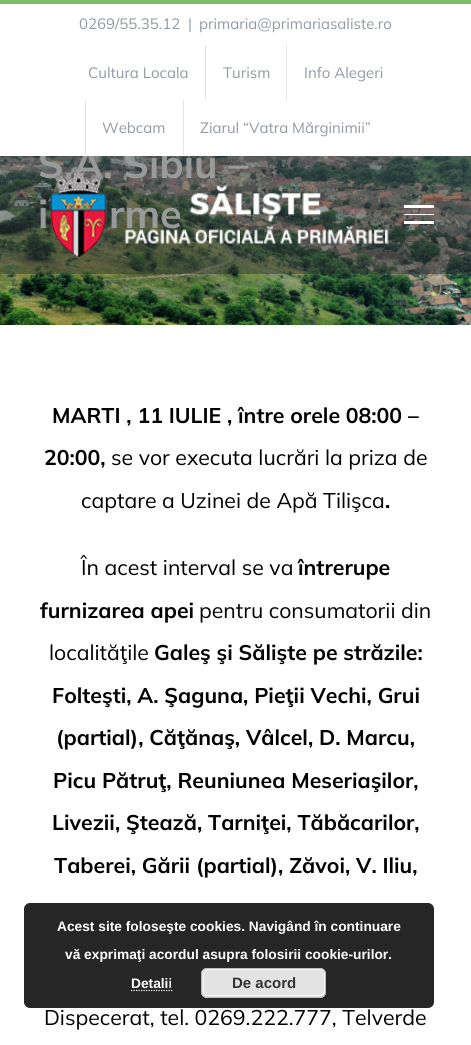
#include <cairo.h>
#include <math.h>
#include <stddef.h>

typedef struct { const char *family; double size; int italic, bold; unsigned color; } style_t;
static cairo_t *ctx;

static void ink(unsigned color) {
    cairo_set_source_rgb(ctx, (color >> 16) / 255.0, (color >> 8 & 255) / 255.0, (color & 255) / 255.0);
}

static void write(double x, double y, const char *s, const style_t *st) {
    cairo_select_font_face(ctx, st->family, st->italic ? CAIRO_FONT_SLANT_ITALIC : CAIRO_FONT_SLANT_NORMAL,
        st->bold ? CAIRO_FONT_WEIGHT_BOLD : CAIRO_FONT_WEIGHT_NORMAL);
    cairo_set_font_size(ctx, st->size);
    ink(st->color);
    cairo_move_to(ctx, x, y);
    cairo_show_text(ctx, s);
}

static void block(double x, double y, double w, double h, unsigned color) {
    ink(color);
    cairo_rectangle(ctx, x, y, w, h);
    cairo_fill(ctx);
}

static void round_path(double x, double y, double w, double h, double r) {
    cairo_new_sub_path(ctx);
    cairo_arc(ctx, x + w - r, y + h - r, r, 0, M_PI / 2);
    cairo_arc(ctx, x + r, y + h - r, r, M_PI / 2, M_PI);
    cairo_arc(ctx, x + r, y + r, r, M_PI, 1.5 * M_PI);
    cairo_arc(ctx, x + w - r, y + r, r, 1.5 * M_PI, 2 * M_PI);
    cairo_close_path(ctx);
}

static void paste(const char *path, double x, double y, double w, double h) {
    cairo_surface_t *image = cairo_image_surface_create_from_png(path);
    cairo_save(ctx);
    cairo_set_source_surface(ctx, image, x, y);
    cairo_rectangle(ctx, x, y, w, h);
    cairo_fill(ctx);
    cairo_restore(ctx);
    cairo_surface_destroy(image);
}

static const style_t s1 = {"Mulish", 15, 0, 0, 0x929aa3};
static const style_t s2 = {"Mulish", 39.5, 0, 1, 0xffffff};
static const style_t s3 = {"Mulish", 21.25, 0, 1, 0x000000};
static const style_t s4 = {"Mulish", 21.25, 0, 0, 0x000000};
static const style_t s5 = {"Liberation Sans", 13.75, 0, 1, 0xffffff};
static const style_t s6 = {"Liberation Sans", 15, 0, 1, 0x333333};

int main(void) {
    cairo_surface_t *surface = cairo_image_surface_create(CAIRO_FORMAT_RGB24, 471, 1045);
    ctx = cairo_create(surface);
    cairo_font_options_t *options = cairo_font_options_create();
    cairo_font_options_set_hint_metrics(options, CAIRO_HINT_METRICS_OFF);
    cairo_font_options_set_hint_style(options, CAIRO_HINT_STYLE_NONE);
    cairo_set_font_options(ctx, options);
    cairo_set_miter_limit(ctx, 4);
    ink(0xffffff);
    cairo_paint(ctx);
    block(0, 0, 471, 4, 0x7abc64);
    write(79, 29, "0269/55.35.12", &s1);
    write(188, 29, "|", &s1);
    write(199, 29, "primaria@primariasaliste.ro", &s1);
    write(88, 78, "Cultura Locala", &s1);
    block(205, 45, 1, 55, 0xe5e5e5);
    write(223, 78, "Turism", &s1);
    block(286, 45, 1, 55, 0xe5e5e5);
    write(304, 78, "Info Alegeri", &s1);
    paste("pic2.png", 0, 156, 471, 169);
    write(38, 178, "S.A. Sibiu –", &s2);
    block(85, 100, 1, 55, 0xe5e5e5);
    write(102, 133, "Webcam", &s1);
    block(183, 100, 1, 55, 0xe5e5e5);
    write(200, 133, "Ziarul “Vatra Mărginimii”", &s1);
    write(38, 228, "i", &s2);
    write(109, 228, "rme", &s2);
    cairo_set_source_rgba(ctx, 0.208, 0.212, 0.216, 0.5);
    cairo_rectangle(ctx, 0, 156, 471, 118);
    cairo_fill(ctx);
    paste("pic1.png", 49, 171, 340, 87);
    block(404, 205, 30, 3, 0xffffff);
    block(404, 214, 30, 1, 0xffffff);
    block(404, 221, 30, 3, 0xffffff);
    write(52, 423, "MARTI , 11 IULIE , între orele 08:00 –", &s3);
    write(44, 465, "20:00,", &s3);
    write(111, 465, "se vor executa lucrări la priza de", &s4);
    write(81, 508, "captare a Uzinei de Apă Tilişca", &s4);
    write(385, 508, ".", &s3);
    write(81, 575, "În acest interval se va", &s4);
    write(298, 575, "întrerupe", &s3);
    write(40, 618, "furnizarea apei", &s3);
    write(199, 618, "pentru consumatorii din", &s4);
    write(49, 660, "localităţile", &s4);
    write(154, 660, "Galeş şi Sălişte pe străzile:", &s3);
    write(52, 703, "Folteşti, A. Şaguna, Pieţii Vechi, Grui", &s3);
    write(56, 745, "(partial), Căţănaş, Vâlcel, D. Marcu,", &s3);
    write(53, 788, "Picu Pătruţ, Reuniunea Meseriaşilor,", &s3);
    write(52, 830, "Livezii, Ştează, Tarniţei, Tăbăcarilor,", &s3);
    write(54, 873, "Taberei, Gării (partial), Zăvoi, V. Iliu,", &s3);
    write(44, 1025, "Dispecerat, tel. 0269.222.777, Telverde", &s4);
    cairo_set_source_rgba(ctx, 0, 0, 0, 0.85);
    round_path(24, 903, 410, 105, 6);
    cairo_fill(ctx);
    write(57, 931, "Acest site foloseşte cookies. Navigând în continuare", &s5);
    write(65, 959, "vă exprimaţi acordul asupra folosirii cookie-urilor.", &s5);
    write(131, 988, "Detalii", &s5);
    cairo_new_path(ctx);
    cairo_move_to(ctx, 131, 990.5);
    cairo_line_to(ctx, 172.5, 990.5);
    cairo_set_line_width(ctx, 1.2);
    cairo_set_dash(ctx, (double[]){1.25, 1.25}, 2, 0);
    cairo_stroke(ctx);
    ink(0xe3e3e3);
    round_path(201, 968, 125, 30, 6);
    cairo_fill(ctx);
    round_path(203.5, 969.5, 121, 26, 4.5);
    ink(0xf6f6f6);
    cairo_set_line_width(ctx, 1);
    cairo_set_dash(ctx, NULL, 0, 0);
    cairo_stroke(ctx);
    round_path(201.5, 968.5, 124, 29, 5.5);
    ink(0xbbbbbb);
    cairo_stroke(ctx);
    write(232, 988, "De acord", &s6);
    cairo_surface_write_to_png(surface, "screenshot.png");
    cairo_font_options_destroy(options);
    cairo_destroy(ctx);
    cairo_surface_destroy(surface);
    return 0;
}
